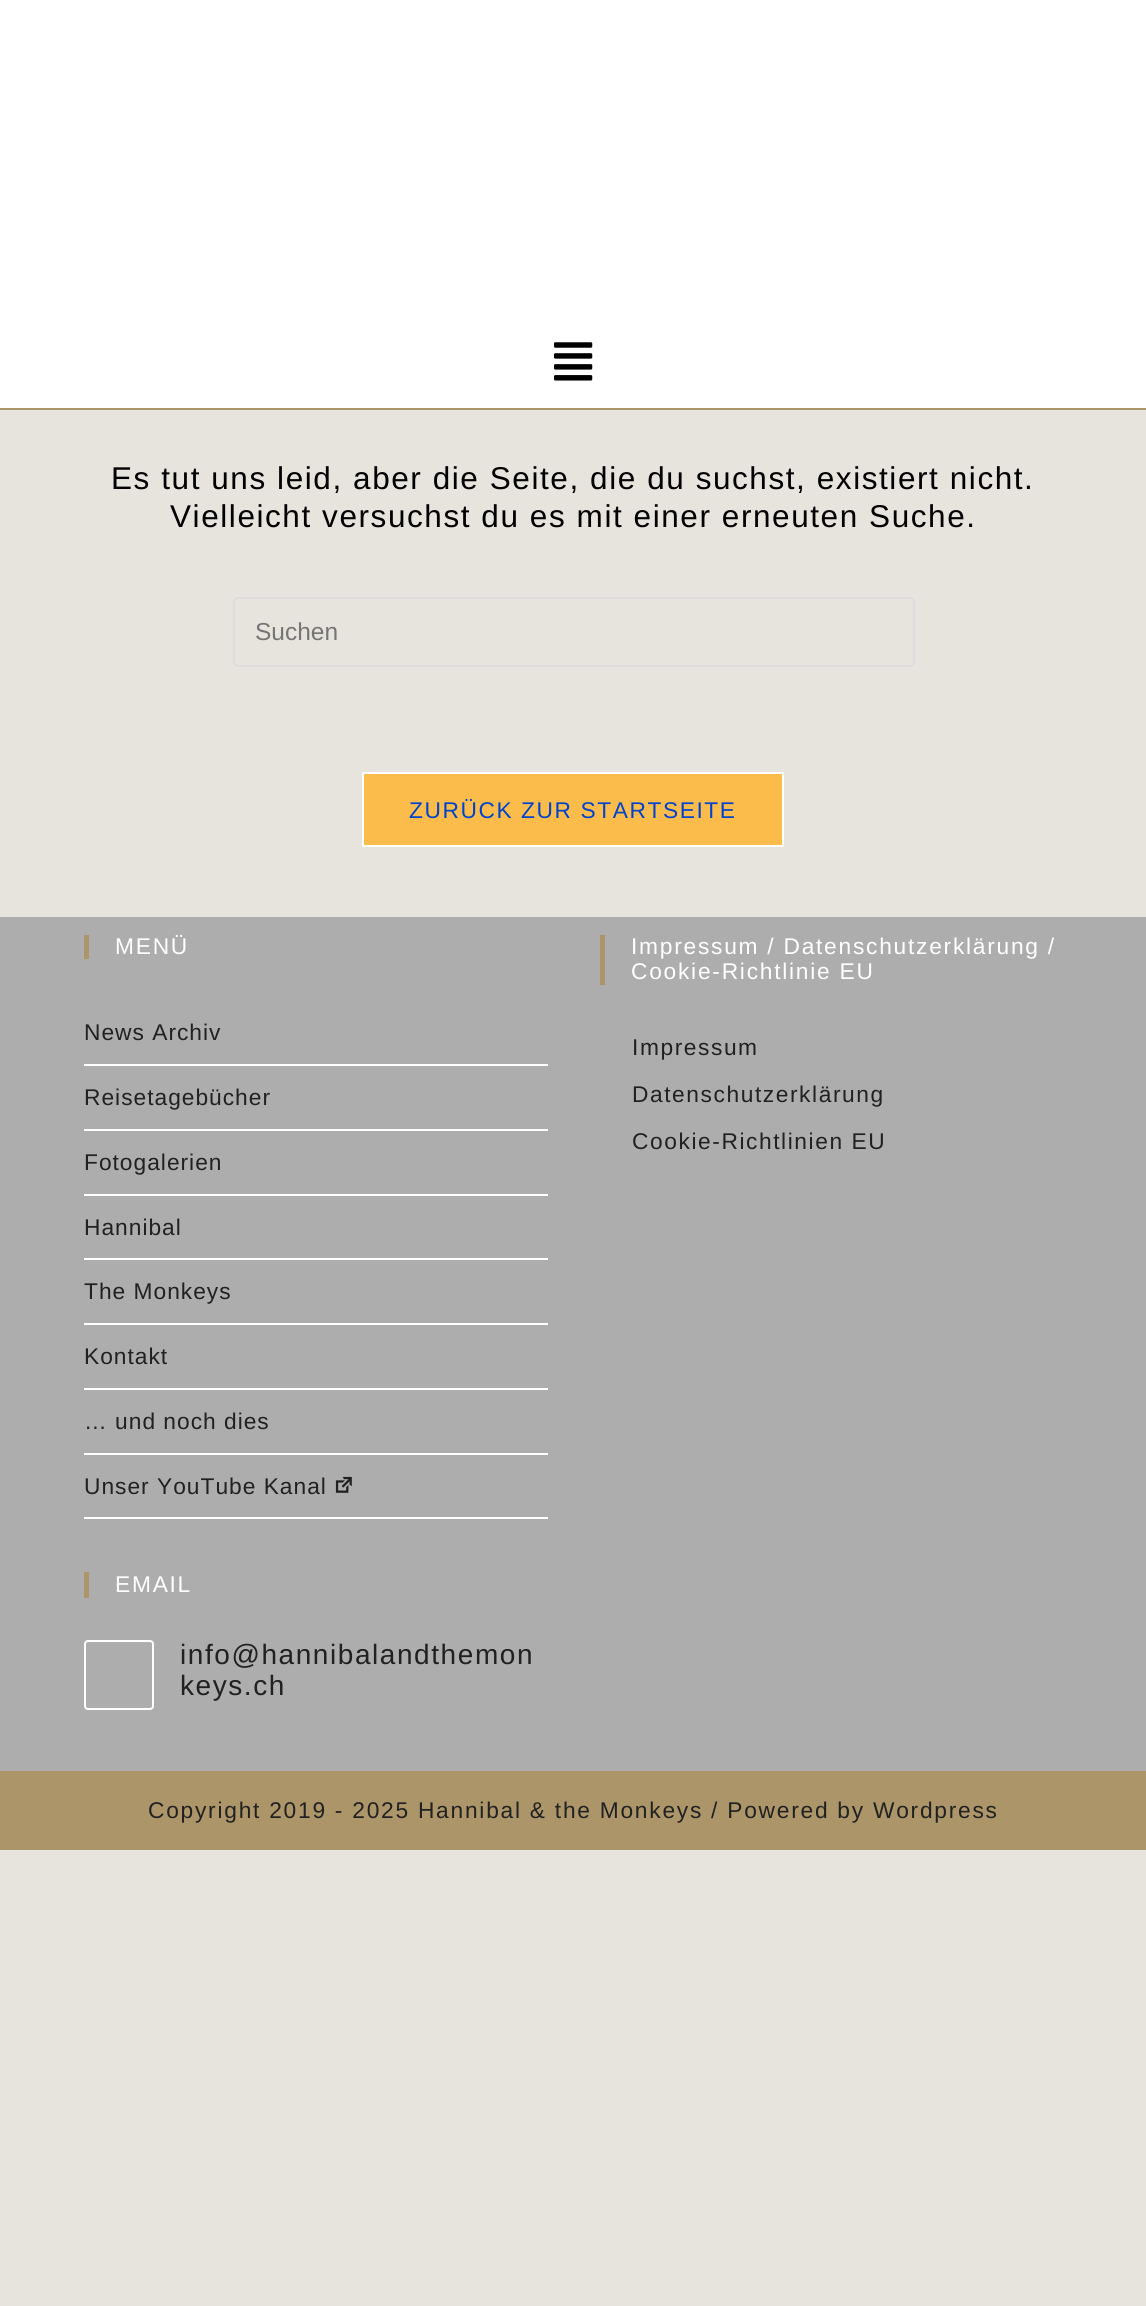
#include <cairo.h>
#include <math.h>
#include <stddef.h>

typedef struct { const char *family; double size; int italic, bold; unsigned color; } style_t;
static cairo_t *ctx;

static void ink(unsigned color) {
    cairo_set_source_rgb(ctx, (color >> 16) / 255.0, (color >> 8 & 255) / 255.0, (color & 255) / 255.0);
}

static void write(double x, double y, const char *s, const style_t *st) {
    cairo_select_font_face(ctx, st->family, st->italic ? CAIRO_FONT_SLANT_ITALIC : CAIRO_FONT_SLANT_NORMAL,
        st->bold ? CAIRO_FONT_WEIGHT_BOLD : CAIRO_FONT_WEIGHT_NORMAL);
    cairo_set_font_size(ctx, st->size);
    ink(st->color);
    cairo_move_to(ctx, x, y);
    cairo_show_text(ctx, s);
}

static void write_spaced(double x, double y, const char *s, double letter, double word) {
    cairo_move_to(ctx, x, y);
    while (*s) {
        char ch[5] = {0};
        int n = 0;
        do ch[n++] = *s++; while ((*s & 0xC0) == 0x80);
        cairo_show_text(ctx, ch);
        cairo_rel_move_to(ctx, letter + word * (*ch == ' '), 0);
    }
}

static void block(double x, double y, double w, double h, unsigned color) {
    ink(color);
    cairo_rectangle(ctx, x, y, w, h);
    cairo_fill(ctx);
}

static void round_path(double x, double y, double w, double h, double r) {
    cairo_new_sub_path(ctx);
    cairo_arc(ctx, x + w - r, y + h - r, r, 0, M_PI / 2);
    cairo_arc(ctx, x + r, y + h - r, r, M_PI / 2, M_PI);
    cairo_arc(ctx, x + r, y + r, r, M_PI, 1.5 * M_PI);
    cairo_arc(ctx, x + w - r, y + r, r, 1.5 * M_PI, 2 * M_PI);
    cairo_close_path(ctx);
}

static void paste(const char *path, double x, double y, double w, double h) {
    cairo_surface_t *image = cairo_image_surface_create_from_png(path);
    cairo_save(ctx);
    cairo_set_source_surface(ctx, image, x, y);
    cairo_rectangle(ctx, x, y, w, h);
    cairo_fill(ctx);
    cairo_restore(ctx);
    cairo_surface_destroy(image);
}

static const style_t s1 = {"Liberation Sans", 24.5, 0, 0, 0x757575};

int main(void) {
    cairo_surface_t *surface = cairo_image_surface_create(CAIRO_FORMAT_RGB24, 1146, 2306);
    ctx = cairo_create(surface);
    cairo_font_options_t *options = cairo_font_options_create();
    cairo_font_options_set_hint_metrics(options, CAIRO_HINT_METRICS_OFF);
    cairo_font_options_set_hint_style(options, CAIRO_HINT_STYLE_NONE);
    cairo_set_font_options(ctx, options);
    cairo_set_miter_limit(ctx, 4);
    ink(0xe7e4de);
    cairo_paint(ctx);
    block(0, 0, 1146, 408, 0xffffff);
    block(0, 408, 1146, 2, 0xac9669);
    paste("pic1.png", 554, 342, 39, 39);
    cairo_select_font_face(ctx, "Liberation Sans", CAIRO_FONT_SLANT_NORMAL, CAIRO_FONT_WEIGHT_NORMAL);
    cairo_set_font_size(ctx, 31.5);
    ink(0x000000);
    write_spaced(111, 489, "Es tut uns leid, aber die Seite, die du suchst, existiert nicht.", 1.57, 0);
    write_spaced(170, 527, "Vielleicht versuchst du es mit einer erneuten Suche.", 1.57, 0);
    round_path(234, 598, 680, 68, 4);
    ink(0xdddddd);
    cairo_stroke(ctx);
    write(255, 640, "Suchen", &s1);
    ink(0xfbbc4b);
    cairo_rectangle(ctx, 363, 773, 420, 73);
    cairo_fill_preserve(ctx);
    ink(0xffffff);
    cairo_stroke(ctx);
    cairo_set_font_size(ctx, 22.75);
    ink(0x0043cc);
    write_spaced(409, 818, "ZURÜCK ZUR STARTSEITE", 1.57, 0);
    block(0, 917, 1146, 854, 0xadadad);
    block(84, 935, 5, 24, 0xac9669);
    ink(0xffffff);
    write_spaced(115, 954, "MENÜ", 1.75, 0);
    block(84, 1064, 464, 2, 0xffffff);
    ink(0x212121);
    write_spaced(84, 1040, "News Archiv", 1, 0);
    block(84, 1129, 464, 2, 0xffffff);
    ink(0x212121);
    write_spaced(84, 1105, "Reisetagebücher", 1, 0);
    block(84, 1194, 464, 2, 0xffffff);
    ink(0x212121);
    write_spaced(84, 1170, "Fotogalerien", 1, 0);
    block(84, 1258, 464, 2, 0xffffff);
    ink(0x212121);
    write_spaced(84, 1235, "Hannibal", 1, 0);
    block(84, 1323, 464, 2, 0xffffff);
    ink(0x212121);
    write_spaced(84, 1299, "The Monkeys", 1, 0);
    block(84, 1388, 464, 2, 0xffffff);
    ink(0x212121);
    write_spaced(84, 1364, "Kontakt", 1, 0);
    block(84, 1453, 464, 2, 0xffffff);
    ink(0x212121);
    write_spaced(84, 1429, "… und noch dies", 1, 0);
    block(84, 1517, 464, 2, 0xffffff);
    ink(0x212121);
    write_spaced(84, 1494, "Unser YouTube Kanal", 1, 0);
    paste("pic2.png", 335, 1476, 17, 17);
    block(600, 935, 5, 50, 0xac9669);
    ink(0xffffff);
    write_spaced(631, 954, "Impressum / Datenschutzerklärung /", 1.75, 0);
    write_spaced(631, 979, "Cookie-Richtlinie EU", 1.75, 0);
    ink(0x212121);
    write_spaced(632, 1055, "Impressum", 1.57, 0);
    write_spaced(632, 1102, "Datenschutzerklärung", 1.57, 0);
    write_spaced(632, 1149, "Cookie-Richtlinien EU", 1.57, 0);
    block(84, 1572, 5, 26, 0xac9669);
    ink(0xffffff);
    write_spaced(115, 1592, "EMAIL", 1.75, 0);
    round_path(85, 1641, 68, 68, 3);
    cairo_stroke(ctx);
    cairo_set_font_size(ctx, 28);
    ink(0x212121);
    write_spaced(180, 1664, "info@hannibalandthemon", 1.57, 0);
    write_spaced(180, 1695, "keys.ch", 1.57, 0);
    block(0, 1771, 1146, 79, 0xac9669);
    cairo_set_font_size(ctx, 22.75);
    ink(0x212121);
    write_spaced(148, 1818, "Copyright 2019 - 2025 Hannibal & the Monkeys / Powered by Wordpress", 1.75, 0);
    cairo_surface_write_to_png(surface, "screenshot.png");
    cairo_font_options_destroy(options);
    cairo_destroy(ctx);
    cairo_surface_destroy(surface);
    return 0;
}
